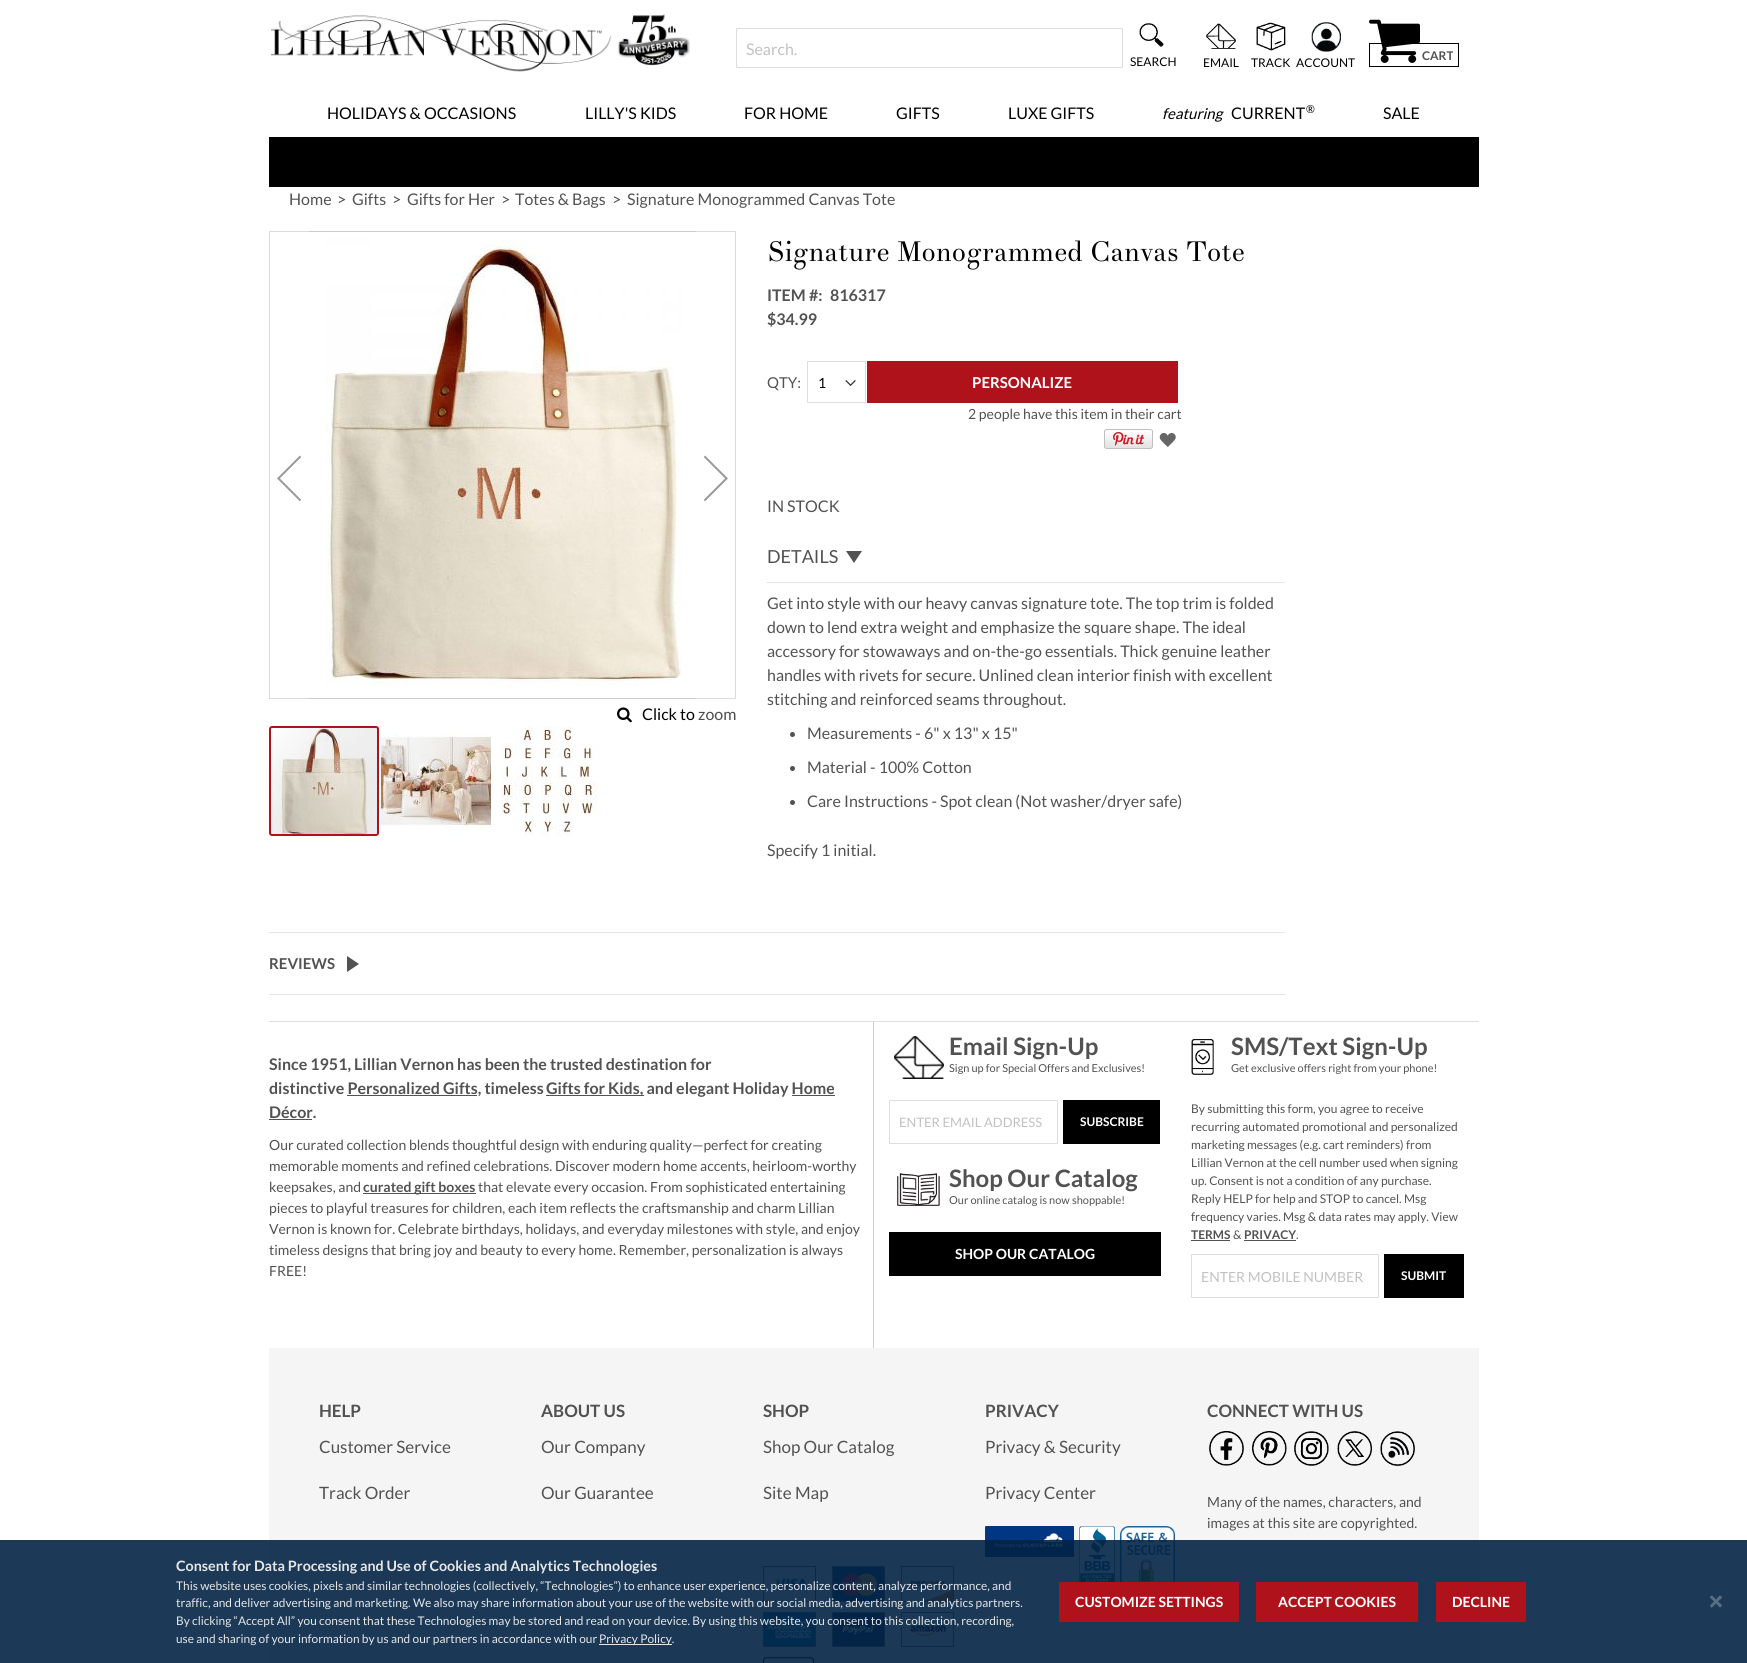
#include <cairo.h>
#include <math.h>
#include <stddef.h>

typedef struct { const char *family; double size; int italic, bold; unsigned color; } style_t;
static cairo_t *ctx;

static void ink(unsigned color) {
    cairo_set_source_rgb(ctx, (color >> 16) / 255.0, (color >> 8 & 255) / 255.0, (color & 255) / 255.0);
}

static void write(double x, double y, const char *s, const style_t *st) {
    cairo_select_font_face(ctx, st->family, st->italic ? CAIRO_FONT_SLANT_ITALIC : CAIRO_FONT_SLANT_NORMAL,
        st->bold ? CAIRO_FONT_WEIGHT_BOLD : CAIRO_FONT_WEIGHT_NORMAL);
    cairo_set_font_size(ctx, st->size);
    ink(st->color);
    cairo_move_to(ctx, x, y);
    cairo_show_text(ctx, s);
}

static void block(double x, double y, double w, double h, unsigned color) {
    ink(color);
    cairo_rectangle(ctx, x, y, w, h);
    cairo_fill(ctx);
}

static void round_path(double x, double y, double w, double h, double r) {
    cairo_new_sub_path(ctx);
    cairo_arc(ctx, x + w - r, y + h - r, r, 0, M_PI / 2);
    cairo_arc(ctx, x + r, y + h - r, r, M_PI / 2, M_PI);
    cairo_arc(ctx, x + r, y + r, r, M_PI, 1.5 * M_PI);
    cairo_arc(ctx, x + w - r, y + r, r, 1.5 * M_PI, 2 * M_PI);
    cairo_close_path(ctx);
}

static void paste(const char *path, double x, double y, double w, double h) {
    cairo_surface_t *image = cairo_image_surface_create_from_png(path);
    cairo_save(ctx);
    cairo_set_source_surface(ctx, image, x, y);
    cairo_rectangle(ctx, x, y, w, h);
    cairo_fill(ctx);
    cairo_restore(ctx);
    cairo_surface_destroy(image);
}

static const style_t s1 = {"Lato", 16, 0, 0, 0xc2c2c2};
static const style_t s2 = {"Lato", 12, 0, 0, 0x000000};
static const style_t s3 = {"Lato", 12, 0, 1, 0x525252};
static const style_t s4 = {"Lato", 16, 0, 0, 0x000000};
static const style_t s5 = {"Lato", 15, 1, 0, 0x000000};
static const style_t s6 = {"Lato", 11, 0, 0, 0x000000};
static const style_t s7 = {"Lato", 16, 0, 0, 0x525252};
static const style_t s8 = {"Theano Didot", 28, 0, 0, 0x000000};
static const style_t s9 = {"Lato", 16, 0, 1, 0x525252};
static const style_t s10 = {"Lato", 15, 0, 0, 0x525252};
static const style_t s11 = {"Lato", 14, 0, 0, 0x000000};
static const style_t s12 = {"Lato", 15, 0, 1, 0xffffff};
static const style_t s13 = {"Lato", 14, 0, 0, 0x525252};
static const style_t s14 = {"Lato", 18, 0, 0, 0x525252};
static const style_t s15 = {"Lato", 15, 0, 1, 0x525252};
static const style_t s16 = {"Lato", 14, 0, 1, 0x525252};
static const style_t s17 = {"Lato", 24, 0, 1, 0x525252};
static const style_t s18 = {"Lato", 11, 0, 0, 0x525252};
static const style_t s19 = {"Lato", 13, 0, 0, 0xc2c2c2};
static const style_t s20 = {"Lato", 12, 0, 1, 0xffffff};
static const style_t s21 = {"Lato", 14, 0, 1, 0xffffff};
static const style_t s22 = {"Lato", 12, 0, 0, 0x525252};
static const style_t s23 = {"Lato", 14, 0, 0, 0xc2c2c2};
static const style_t s24 = {"Lato", 17, 0, 1, 0x525252};
static const style_t s25 = {"Lato", 17, 0, 0, 0x525252};
static const style_t s26 = {"Lato", 14.3, 0, 1, 0xe6e6e6};
static const style_t s27 = {"Lato", 11.9, 0, 0, 0xe6e6e6};

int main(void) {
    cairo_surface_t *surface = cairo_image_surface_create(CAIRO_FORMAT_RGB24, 1747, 1663);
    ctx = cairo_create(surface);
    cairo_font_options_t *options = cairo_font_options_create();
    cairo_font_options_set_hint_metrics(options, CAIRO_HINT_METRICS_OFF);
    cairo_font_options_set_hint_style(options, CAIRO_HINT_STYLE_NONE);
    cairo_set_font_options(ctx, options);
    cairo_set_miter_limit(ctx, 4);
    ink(0xffffff);
    cairo_paint(ctx);
    paste("pic1.png", 271, 14, 419, 58);
    round_path(736.5, 28.5, 386, 39, 0.5);
    ink(0xdddddd);
    cairo_set_line_width(ctx, 1);
    cairo_stroke(ctx);
    write(746, 55, "Search.", &s1);
    paste("pic2.png", 1139, 23, 25, 24);
    write(1130, 66, "SEARCH", &s2);
    cairo_rectangle(ctx, 1369.5, 43.5, 89, 23);
    cairo_stroke(ctx);
    paste("pic3.png", 1369, 19, 51, 44);
    write(1422, 60, "CART", &s3);
    paste("pic4.png", 1206, 23, 30, 26);
    write(1203, 67, "EMAIL", &s2);
    paste("pic5.png", 1256, 22, 30, 29);
    write(1251, 67, "TRACK", &s2);
    paste("pic6.png", 1311, 22, 30, 30);
    write(1296, 67, "ACCOUNT", &s2);
    write(327, 119, "HOLIDAYS & OCCASIONS", &s4);
    write(585, 119, "LILLY'S KIDS", &s4);
    write(744, 119, "FOR HOME", &s4);
    write(896, 119, "GIFTS", &s4);
    write(1008, 119, "LUXE GIFTS", &s4);
    write(1162, 119, "featuring", &s5);
    write(1231, 119, "CURRENT", &s4);
    write(1306, 113, "®", &s6);
    write(1383, 119, "SALE", &s4);
    block(269, 137, 1210, 50, 0x000000);
    write(289, 205, "Home", &s7);
    write(337, 205, ">", &s7);
    write(352, 205, "Gifts", &s7);
    write(392, 205, ">", &s7);
    write(407, 205, "Gifts for Her", &s7);
    write(501, 205, ">", &s7);
    write(515, 205, "Totes & Bags", &s7);
    write(612, 205, ">", &s7);
    write(627, 205, "Signature Monogrammed Canvas Tote", &s7);
    cairo_rectangle(ctx, 269.5, 231.5, 466, 467);
    ink(0xcccccc);
    cairo_stroke(ctx);
    paste("pic7.png", 325, 238, 357, 448);
    cairo_set_source_rgba(ctx, 1, 1, 1, 0.3);
    cairo_rectangle(ctx, 269, 231, 40, 468);
    cairo_fill(ctx);
    paste("pic8.png", 277, 455, 25, 47);
    write(642, 720, "Click to zoom", &s4);
    cairo_set_source_rgba(ctx, 1, 1, 1, 0.3);
    cairo_rectangle(ctx, 696, 231, 40, 490);
    cairo_fill(ctx);
    paste("pic9.png", 703, 455, 25, 47);
    paste("pic10.png", 617, 707, 15, 16);
    paste("pic11.png", 269, 726, 110, 110);
    round_path(270, 727, 108, 108, 2);
    ink(0xaf121a);
    cairo_set_line_width(ctx, 2);
    cairo_stroke(ctx);
    paste("pic12.png", 381, 726, 110, 110);
    paste("pic13.png", 493, 726, 110, 110);
    write(767, 261, "Signature Monogrammed Canvas Tote", &s8);
    write(767, 301, "ITEM", &s9);
    write(809, 301, "#:", &s9);
    write(830, 301, "816317", &s9);
    write(767, 325, "$34.99", &s9);
    write(767, 388, "QTY:", &s10);
    paste("pic14.png", 845, 380, 11, 6);
    round_path(807.5, 361.5, 58, 41, 0.5);
    ink(0xdddddd);
    cairo_set_line_width(ctx, 1);
    cairo_stroke(ctx);
    write(818, 388, "1", &s11);
    block(867, 361, 311, 42, 0xaf121a);
    write(972, 388, "PERSONALIZE", &s12);
    write(968, 419, "2 people have this item in their cart", &s13);
    paste("pic15.png", 1104, 429, 49, 20);
    paste("pic16.png", 1159, 433, 17, 14);
    write(767, 512, "IN STOCK", &s7);
    block(767, 582, 518, 1, 0xe4e4e4);
    write(767, 563, "DETAILS", &s14);
    cairo_new_path(ctx);
    cairo_move_to(ctx, 846, 551);
    cairo_line_to(ctx, 862, 551);
    cairo_line_to(ctx, 854, 563);
    cairo_close_path(ctx);
    cairo_fill(ctx);
    write(767, 609, "Get into style with our heavy canvas signature tote. The top trim is folded", &s7);
    write(767, 633, "down to lend extra weight and emphasize the square shape. The ideal", &s7);
    write(767, 657, "accessory for stowaways and on-the-go essentials. Thick genuine leather", &s7);
    write(767, 681, "handles with rivets for secure. Unlined clean interior finish with excellent", &s7);
    write(767, 705, "stitching and reinforced seams throughout.", &s7);
    cairo_new_path(ctx);
    cairo_arc(ctx, 792.5, 734.5, 2.5, 0, 2 * M_PI);
    cairo_fill(ctx);
    write(807, 739, "Measurements - 6\" x 13\" x 15\"", &s7);
    cairo_new_path(ctx);
    cairo_arc(ctx, 792.5, 768.5, 2.5, 0, 2 * M_PI);
    cairo_fill(ctx);
    write(807, 773, "Material - 100% Cotton", &s7);
    cairo_new_path(ctx);
    cairo_arc(ctx, 792.5, 802.5, 2.5, 0, 2 * M_PI);
    cairo_fill(ctx);
    write(807, 807, "Care Instructions - Spot clean (Not washer/dryer safe)", &s7);
    write(767, 856, "Specify 1 initial.", &s7);
    block(269, 932, 1016, 1, 0xe4e4e4);
    block(269, 994, 1016, 1, 0xe4e4e4);
    write(269, 969, "REVIEWS", &s15);
    cairo_new_path(ctx);
    cairo_move_to(ctx, 347, 972);
    cairo_line_to(ctx, 347, 956);
    cairo_line_to(ctx, 359, 964);
    cairo_close_path(ctx);
    cairo_fill(ctx);
    block(269, 1021, 1210, 1, 0xdddddd);
    block(873, 1022, 1, 326, 0xcecece);
    write(269, 1070, "Since 1951, Lillian Vernon has been the trusted destination for", &s9);
    write(269, 1094, "distinctive Personalized Gifts, timeless", &s9);
    block(546, 1095, 98, 1, 0x525252);
    write(546, 1094, "Gifts for Kids, and elegant Holiday Home", &s9);
    block(347, 1095, 130, 1, 0x525252);
    write(269, 1118, "Décor.", &s9);
    block(792, 1095, 43, 1, 0x525252);
    block(269, 1119, 43, 1, 0x525252);
    write(269, 1150, "Our curated collection blends thoughtful design with enduring quality—perfect for creating", &s13);
    write(269, 1171, "memorable moments and refined celebrations. Discover modern home accents, heirloom-worthy", &s13);
    write(269, 1192, "keepsakes, and", &s13);
    block(363, 1193, 113, 1, 0x525252);
    write(363, 1192, "curated gift boxes", &s16);
    write(478, 1192, "that elevate every occasion. From sophisticated entertaining", &s13);
    write(269, 1213, "pieces to playful treasures for children, each item reflects the craftsmanship and charm Lillian", &s13);
    write(269, 1234, "Vernon is known for. Celebrate birthdays, holidays, and everyday milestones with style, and enjoy", &s13);
    write(269, 1255, "timeless designs that bring joy and beauty to every home. Remember, personalization is always", &s13);
    write(269, 1276, "FREE!", &s13);
    paste("pic17.png", 894, 1036, 50, 43);
    write(949, 1055, "Email Sign-Up", &s17);
    write(949, 1072, "Sign up for Special Offers and Exclusives!", &s18);
    round_path(889.5, 1100.5, 168, 43, 0.5);
    ink(0xdddddd);
    cairo_stroke(ctx);
    write(899, 1127, "ENTER EMAIL ADDRESS", &s19);
    block(1063, 1100, 97, 44, 0x000000);
    write(1080, 1126, "SUBSCRIBE", &s20);
    paste("pic18.png", 897, 1173, 43, 33);
    write(949, 1187, "Shop Our Catalog", &s17);
    write(949, 1204, "Our online catalog is now shoppable!", &s18);
    block(889, 1232, 272, 44, 0x000000);
    write(955, 1259, "SHOP OUR CATALOG", &s21);
    paste("pic19.png", 1191, 1039, 23, 36);
    write(1231, 1055, "SMS/Text Sign-Up", &s17);
    write(1231, 1072, "Get exclusive offers right from your phone!", &s18);
    write(1191, 1113, "By submitting this form, you agree to receive", &s22);
    write(1191, 1131, "recurring automated promotional and personalized", &s22);
    write(1191, 1149, "marketing messages (e.g. cart reminders) from", &s22);
    write(1191, 1167, "Lillian Vernon at the cell number used when signing", &s22);
    write(1191, 1185, "up. Consent is not a condition of any purchase.", &s22);
    write(1191, 1203, "Reply HELP for help and STOP to cancel. Msg", &s22);
    write(1191, 1221, "frequency varies. Msg & data rates may apply. View", &s22);
    write(1191, 1239, "TERMS", &s3);
    block(1191, 1240, 39, 1, 0x525252);
    write(1233, 1239, "&", &s22);
    write(1244, 1239, "PRIVACY", &s3);
    block(1244, 1240, 52, 1, 0x525252);
    write(1296, 1239, ".", &s22);
    round_path(1191.5, 1254.5, 187, 43, 0.5);
    ink(0xdddddd);
    cairo_stroke(ctx);
    write(1201, 1282, "ENTER MOBILE NUMBER", &s23);
    block(1384, 1254, 80, 44, 0x000000);
    write(1401, 1280, "SUBMIT", &s20);
    block(269, 1348, 1210, 315, 0xf6f5f5);
    write(319, 1417, "HELP", &s24);
    write(319, 1453, "Customer Service", &s25);
    write(319, 1499, "Track Order", &s25);
    write(541, 1417, "ABOUT US", &s24);
    write(541, 1453, "Our Company", &s25);
    write(541, 1499, "Our Guarantee", &s25);
    write(763, 1417, "SHOP", &s24);
    write(763, 1453, "Shop Our Catalog", &s25);
    write(763, 1499, "Site Map", &s25);
    cairo_rectangle(ctx, 763.5, 1566.5, 52, 35);
    ink(0x757575);
    cairo_stroke(ctx);
    paste("pic20.png", 764, 1567, 51, 34);
    cairo_rectangle(ctx, 832.5, 1566.5, 52, 35);
    cairo_stroke(ctx);
    paste("pic21.png", 833, 1567, 51, 34);
    cairo_rectangle(ctx, 901.5, 1566.5, 52, 35);
    cairo_stroke(ctx);
    paste("pic22.png", 908, 1579, 45, 22);
    cairo_rectangle(ctx, 763.5, 1612.5, 52, 34);
    cairo_stroke(ctx);
    paste("pic23.png", 764, 1613, 51, 33);
    cairo_rectangle(ctx, 832.5, 1612.5, 52, 34);
    cairo_stroke(ctx);
    paste("pic24.png", 833, 1613, 51, 33);
    cairo_rectangle(ctx, 901.5, 1612.5, 52, 34);
    cairo_stroke(ctx);
    paste("pic25.png", 909, 1624, 39, 15);
    paste("pic26.png", 763, 1657, 51, 6);
    write(985, 1417, "PRIVACY", &s24);
    write(985, 1453, "Privacy & Security", &s25);
    write(985, 1499, "Privacy Center", &s25);
    paste("pic27.png", 985, 1526, 89, 31);
    paste("pic28.png", 1079, 1526, 36, 56);
    paste("pic29.png", 1120, 1526, 55, 56);
    write(1207, 1417, "CONNECT WITH US", &s24);
    paste("pic30.png", 1209, 1431, 35, 35);
    paste("pic31.png", 1252, 1431, 35, 35);
    paste("pic32.png", 1294, 1431, 35, 35);
    paste("pic33.png", 1337, 1431, 35, 35);
    paste("pic34.png", 1380, 1431, 35, 35);
    write(1207, 1507, "Many of the names, characters, and", &s13);
    write(1207, 1528, "images at this site are copyrighted.", &s13);
    cairo_set_source_rgba(ctx, 0, 0.133, 0.267, 0.89);
    cairo_rectangle(ctx, 0, 1540, 1747, 123);
    cairo_fill(ctx);
    write(176, 1571, "Consent for Data Processing and Use of Cookies and Analytics Technologies", &s26);
    write(176, 1590, "This website uses cookies, pixels and similar technologies (collectively, “Technologies”) to enhance user experience, personalize content, analyze performance, and", &s27);
    write(176, 1607, "traffic, and deliver advertising and marketing. We also may share information about your use of the website with our social media, advertising and analytics partners.", &s27);
    write(176, 1625, "By clicking “Accept All” you consent that these Technologies may be stored and read on your device. By using this website, you consent to this collection, recording,", &s27);
    write(176, 1643, "use and sharing of your information by us and our partners in accordance with our", &s27);
    block(599, 1644, 73, 1, 0xe6e6e6);
    write(599, 1643, "Privacy Policy.", &s27);
    block(1059, 1582, 180, 40, 0xaf121a);
    write(1075, 1607, "CUSTOMIZE SETTINGS", &s21);
    block(1256, 1582, 162, 40, 0xaf121a);
    write(1278, 1607, "ACCEPT COOKIES", &s21);
    block(1436, 1582, 90, 40, 0xaf121a);
    write(1452, 1607, "DECLINE", &s21);
    ink(0x596e83);
    cairo_new_path(ctx);
    cairo_move_to(ctx, 1712.5, 1596);
    cairo_line_to(ctx, 1718.5, 1602);
    cairo_curve_to(ctx, 1719, 1602.5, 1723, 1605, 1721.5, 1606.5);
    cairo_line_to(ctx, 1720, 1607.5);
    cairo_curve_to(ctx, 1719.5, 1607.5, 1718.5, 1606, 1718, 1605.5);
    cairo_line_to(ctx, 1710, 1597.5);
    cairo_curve_to(ctx, 1709.5, 1596.5, 1711.5, 1595, 1712.5, 1596);
    cairo_close_path(ctx);
    cairo_fill(ctx);
    cairo_new_path(ctx);
    cairo_move_to(ctx, 1710.5, 1605);
    cairo_line_to(ctx, 1716.5, 1599);
    cairo_curve_to(ctx, 1717, 1598.5, 1719.5, 1594.5, 1721, 1596);
    cairo_line_to(ctx, 1722, 1597.5);
    cairo_curve_to(ctx, 1722, 1598, 1720.5, 1599.5, 1720, 1599.5);
    cairo_line_to(ctx, 1712, 1607.5);
    cairo_curve_to(ctx, 1711, 1608, 1709.5, 1606, 1710.5, 1605);
    cairo_close_path(ctx);
    cairo_fill(ctx);
    cairo_surface_write_to_png(surface, "screenshot.png");
    cairo_font_options_destroy(options);
    cairo_destroy(ctx);
    cairo_surface_destroy(surface);
    return 0;
}
